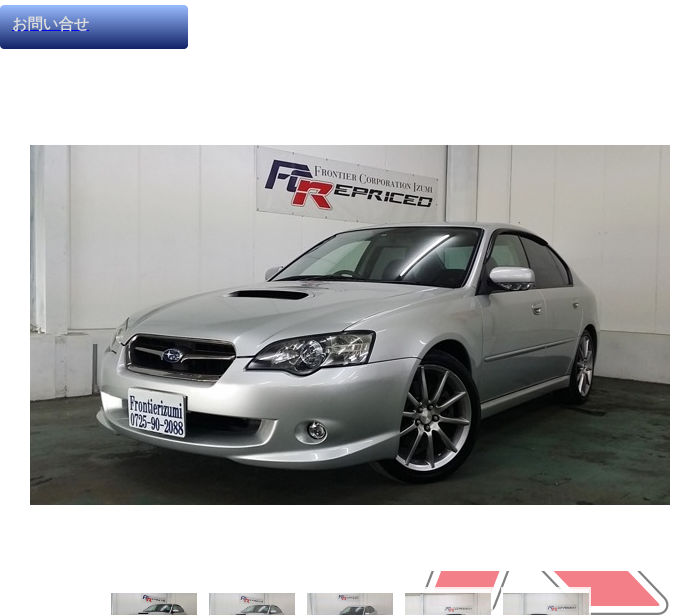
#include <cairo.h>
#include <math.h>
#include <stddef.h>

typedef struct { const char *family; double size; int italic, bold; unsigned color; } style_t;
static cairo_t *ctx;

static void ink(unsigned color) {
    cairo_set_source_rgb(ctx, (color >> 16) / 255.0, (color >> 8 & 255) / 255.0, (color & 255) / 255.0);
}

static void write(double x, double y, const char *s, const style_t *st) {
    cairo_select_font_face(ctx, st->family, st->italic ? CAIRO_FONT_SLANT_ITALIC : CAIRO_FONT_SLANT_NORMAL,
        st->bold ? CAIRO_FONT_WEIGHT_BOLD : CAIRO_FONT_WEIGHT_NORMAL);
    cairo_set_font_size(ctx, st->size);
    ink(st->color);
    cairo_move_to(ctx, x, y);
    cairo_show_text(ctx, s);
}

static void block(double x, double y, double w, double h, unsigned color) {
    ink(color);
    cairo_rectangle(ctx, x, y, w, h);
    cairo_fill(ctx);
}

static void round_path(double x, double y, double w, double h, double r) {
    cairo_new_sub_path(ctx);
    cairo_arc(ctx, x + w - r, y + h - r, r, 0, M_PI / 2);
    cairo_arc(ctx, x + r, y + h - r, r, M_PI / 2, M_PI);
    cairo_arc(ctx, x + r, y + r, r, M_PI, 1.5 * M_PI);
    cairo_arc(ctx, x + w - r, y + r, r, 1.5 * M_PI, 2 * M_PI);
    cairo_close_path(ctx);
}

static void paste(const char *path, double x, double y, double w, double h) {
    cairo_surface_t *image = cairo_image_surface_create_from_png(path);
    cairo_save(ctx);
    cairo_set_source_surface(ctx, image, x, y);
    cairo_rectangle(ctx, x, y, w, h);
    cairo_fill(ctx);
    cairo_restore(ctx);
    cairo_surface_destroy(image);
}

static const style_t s1 = {"WenQuanYi Zen Hei", 15.25, 0, 1, 0xdddddd};

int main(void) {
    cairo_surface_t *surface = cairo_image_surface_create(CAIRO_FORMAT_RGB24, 674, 615);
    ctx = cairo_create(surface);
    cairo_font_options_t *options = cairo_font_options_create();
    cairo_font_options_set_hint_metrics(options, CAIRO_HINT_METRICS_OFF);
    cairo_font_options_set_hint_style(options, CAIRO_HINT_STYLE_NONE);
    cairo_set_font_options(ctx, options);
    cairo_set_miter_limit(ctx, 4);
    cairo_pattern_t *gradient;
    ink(0xffffff);
    cairo_paint(ctx);
    paste("pic1.png", 419, 571, 250, 44);
    gradient = cairo_pattern_create_linear(94, 5, 94, 49);
    cairo_pattern_add_color_stop_rgba(gradient, 0, 0.6, 0.733, 1, 1);
    cairo_pattern_add_color_stop_rgba(gradient, 1, 0.067, 0.133, 0.4, 1);
    cairo_set_source(ctx, gradient);
    cairo_pattern_destroy(gradient);
    round_path(0, 5, 188, 44, 4);
    cairo_fill(ctx);
    block(12, 30, 77, 1, 0x0000ee);
    write(12, 29, "お問い合せ", &s1);
    paste("pic2.png", 30, 144, 640, 421);
    paste("pic3.png", 111, 593, 86, 22);
    paste("pic4.png", 209, 593, 86, 22);
    paste("pic5.png", 307, 593, 86, 22);
    cairo_set_source_rgba(ctx, 1, 1, 1, 0.8);
    cairo_rectangle(ctx, 419, 587, 74, 28);
    cairo_fill(ctx);
    paste("pic6.png", 405, 589, 86, 26);
    cairo_rectangle(ctx, 501, 587, 90, 28);
    cairo_fill(ctx);
    paste("pic7.png", 503, 589, 86, 26);
    cairo_surface_write_to_png(surface, "screenshot.png");
    cairo_font_options_destroy(options);
    cairo_destroy(ctx);
    cairo_surface_destroy(surface);
    return 0;
}
